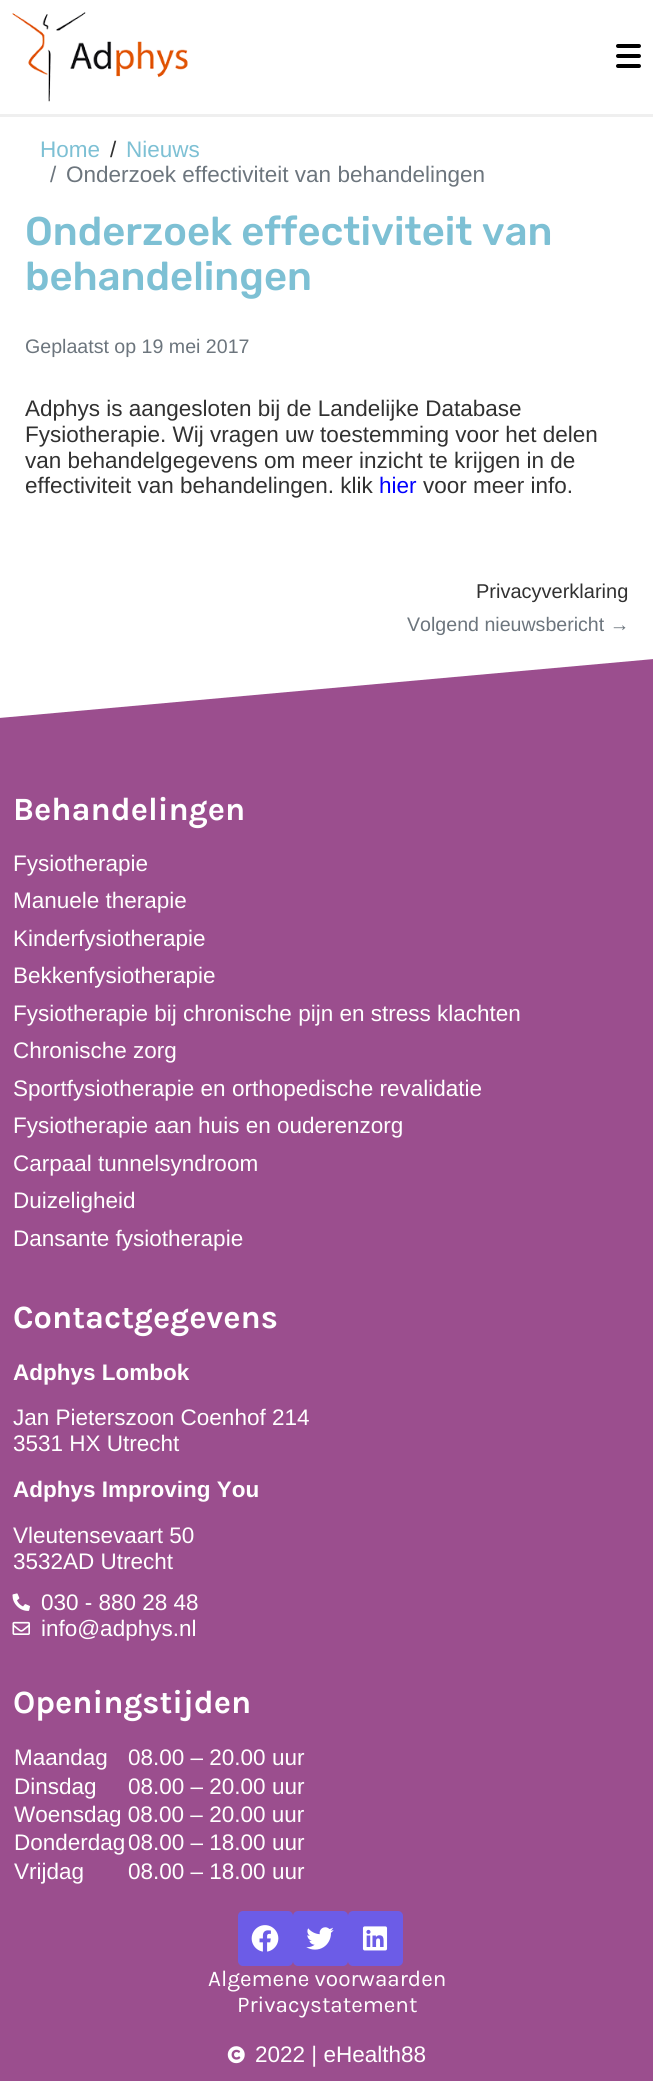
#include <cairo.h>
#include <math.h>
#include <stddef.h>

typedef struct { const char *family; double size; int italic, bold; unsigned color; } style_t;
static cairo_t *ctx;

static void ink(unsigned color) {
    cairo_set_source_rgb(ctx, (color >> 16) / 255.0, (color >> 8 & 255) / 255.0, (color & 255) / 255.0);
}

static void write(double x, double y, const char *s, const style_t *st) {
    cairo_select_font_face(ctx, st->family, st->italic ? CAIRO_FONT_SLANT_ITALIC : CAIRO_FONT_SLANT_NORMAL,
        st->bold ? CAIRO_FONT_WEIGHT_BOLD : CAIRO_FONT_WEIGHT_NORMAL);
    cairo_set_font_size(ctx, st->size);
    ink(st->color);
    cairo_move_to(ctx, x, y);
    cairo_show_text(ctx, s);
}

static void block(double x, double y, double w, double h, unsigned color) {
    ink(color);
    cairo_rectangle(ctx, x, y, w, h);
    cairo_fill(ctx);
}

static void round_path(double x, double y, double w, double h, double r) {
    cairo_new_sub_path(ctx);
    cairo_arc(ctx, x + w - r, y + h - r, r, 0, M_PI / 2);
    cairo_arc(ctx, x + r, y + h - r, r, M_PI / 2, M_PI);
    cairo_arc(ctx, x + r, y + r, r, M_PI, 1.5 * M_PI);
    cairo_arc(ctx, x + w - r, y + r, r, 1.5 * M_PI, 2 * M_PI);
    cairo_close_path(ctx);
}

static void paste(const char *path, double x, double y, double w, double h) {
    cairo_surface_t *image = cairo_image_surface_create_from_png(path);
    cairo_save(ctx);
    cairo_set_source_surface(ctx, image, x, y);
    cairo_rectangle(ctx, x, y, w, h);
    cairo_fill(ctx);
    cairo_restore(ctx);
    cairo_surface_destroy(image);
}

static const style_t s1 = {"Liberation Sans", 22.5, 0, 0, 0x7dc0d4};
static const style_t s2 = {"Liberation Sans", 22.5, 0, 0, 0x313131};
static const style_t s3 = {"Liberation Sans", 22.5, 0, 0, 0x6c757d};
static const style_t s4 = {"Rubik Medium", 40, 0, 0, 0x7dc0d4};
static const style_t s5 = {"Liberation Sans", 19.6, 0, 0, 0x6c757d};
static const style_t s6 = {"Liberation Sans", 22.5, 0, 0, 0x0000ff};
static const style_t s7 = {"Liberation Sans", 20, 0, 0, 0x313131};
static const style_t s8 = {"Karla", 32.5, 0, 1, 0xffffff};
static const style_t s9 = {"Liberation Sans", 22.5, 0, 0, 0xffffff};
static const style_t s10 = {"Liberation Sans", 22.5, 0, 1, 0xffffff};
static const style_t s11 = {"Karla", 22.5, 0, 0, 0xffffff};

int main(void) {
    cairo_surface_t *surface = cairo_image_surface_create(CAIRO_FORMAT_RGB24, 653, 2093);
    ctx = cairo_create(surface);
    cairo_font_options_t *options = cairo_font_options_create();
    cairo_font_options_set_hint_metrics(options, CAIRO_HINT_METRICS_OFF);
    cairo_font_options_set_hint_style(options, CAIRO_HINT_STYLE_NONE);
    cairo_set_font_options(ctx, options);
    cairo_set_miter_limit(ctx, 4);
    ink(0xffffff);
    cairo_paint(ctx);
    block(0, 114, 653, 3, 0xefefef);
    paste("pic1.png", 12, 12, 176, 90);
    ink(0x000000);
    round_path(616, 54, 25, 4, 2);
    cairo_fill(ctx);
    round_path(616, 44, 25, 4, 2);
    cairo_fill(ctx);
    round_path(616, 64, 25, 4, 2);
    cairo_fill(ctx);
    write(40, 157, "Home", &s1);
    write(110, 157, "/", &s2);
    write(126, 157, "Nieuws", &s1);
    write(50, 182, "/", &s3);
    write(66, 182, "Onderzoek effectiviteit van behandelingen", &s3);
    write(25, 245, "Onderzoek effectiviteit van", &s4);
    write(25, 290, "behandelingen", &s4);
    write(25, 353, "Geplaatst op 19 mei 2017", &s5);
    write(25, 416, "Adphys is aangesloten bij de Landelijke Database", &s2);
    write(25, 442, "Fysiotherapie. Wij vragen uw toestemming voor het delen", &s2);
    write(25, 468, "van behandelgegevens om meer inzicht te krijgen in de", &s2);
    write(25, 493, "effectiviteit van behandelingen. klik", &s2);
    write(379, 493, "hier", &s6);
    write(423, 493, "voor meer info.", &s2);
    write(476, 598, "Privacyverklaring", &s7);
    write(407, 631, "Volgend nieuwsbericht →", &s5);
    block(0, 659, 653, 1422, 0x9b4e8e);
    ink(0xffffff);
    cairo_new_path(ctx);
    cairo_move_to(ctx, 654, 659);
    cairo_line_to(ctx, 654, 655);
    cairo_line_to(ctx, -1, 655);
    cairo_line_to(ctx, -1, 718);
    cairo_close_path(ctx);
    cairo_fill(ctx);
    write(13, 820, "Behandelingen", &s8);
    write(13, 871, "Fysiotherapie", &s9);
    write(13, 908, "Manuele therapie", &s9);
    write(13, 946, "Kinderfysiotherapie", &s9);
    write(13, 983, "Bekkenfysiotherapie", &s9);
    write(13, 1021, "Fysiotherapie bij chronische pijn en stress klachten", &s9);
    write(13, 1058, "Chronische zorg", &s9);
    write(13, 1096, "Sportfysiotherapie en orthopedische revalidatie", &s9);
    write(13, 1133, "Fysiotherapie aan huis en ouderenzorg", &s9);
    write(13, 1171, "Carpaal tunnelsyndroom", &s9);
    write(13, 1208, "Duizeligheid", &s9);
    write(13, 1246, "Dansante fysiotherapie", &s9);
    write(13, 1328, "Contactgegevens", &s8);
    write(13, 1380, "Adphys Lombok", &s10);
    write(13, 1425, "Jan Pieterszoon Coenhof 214", &s9);
    write(13, 1451, "3531 HX Utrecht", &s9);
    write(13, 1497, "Adphys Improving You", &s10);
    write(13, 1543, "Vleutensevaart 50", &s9);
    write(13, 1569, "3532AD Utrecht", &s9);
    paste("pic2.png", 12, 1593, 18, 18);
    write(41, 1610, "030 - 880 28 48", &s9);
    paste("pic3.png", 12, 1621, 18, 14);
    write(41, 1636, "info@adphys.nl", &s9);
    write(13, 1713, "Openingstijden", &s8);
    write(14, 1765, "Maandag", &s9);
    write(128, 1765, "08.00 – 20.00 uur", &s9);
    write(14, 1794, "Dinsdag", &s9);
    write(128, 1794, "08.00 – 20.00 uur", &s9);
    write(14, 1822, "Woensdag 08.00 – 20.00 uur", &s9);
    write(14, 1850, "Donderdag", &s9);
    write(128, 1850, "08.00 – 18.00 uur", &s9);
    write(14, 1879, "Vrijdag", &s9);
    write(128, 1879, "08.00 – 18.00 uur", &s9);
    ink(0x6c5ce7);
    round_path(238, 1911, 55, 55, 5);
    cairo_fill(ctx);
    paste("pic4.png", 251, 1925, 28, 27);
    round_path(293, 1911, 55, 55, 5);
    cairo_fill(ctx);
    paste("pic5.png", 306, 1927, 28, 23);
    round_path(348, 1911, 55, 55, 5);
    cairo_fill(ctx);
    paste("pic6.png", 362, 1926, 26, 25);
    write(208, 1986, "Algemene voorwaarden", &s11);
    write(237, 2012, "Privacystatement", &s11);
    paste("pic7.png", 227, 2046, 18, 18);
    write(255, 2062, "2022 | eHealth88", &s9);
    cairo_surface_write_to_png(surface, "screenshot.png");
    cairo_font_options_destroy(options);
    cairo_destroy(ctx);
    cairo_surface_destroy(surface);
    return 0;
}
